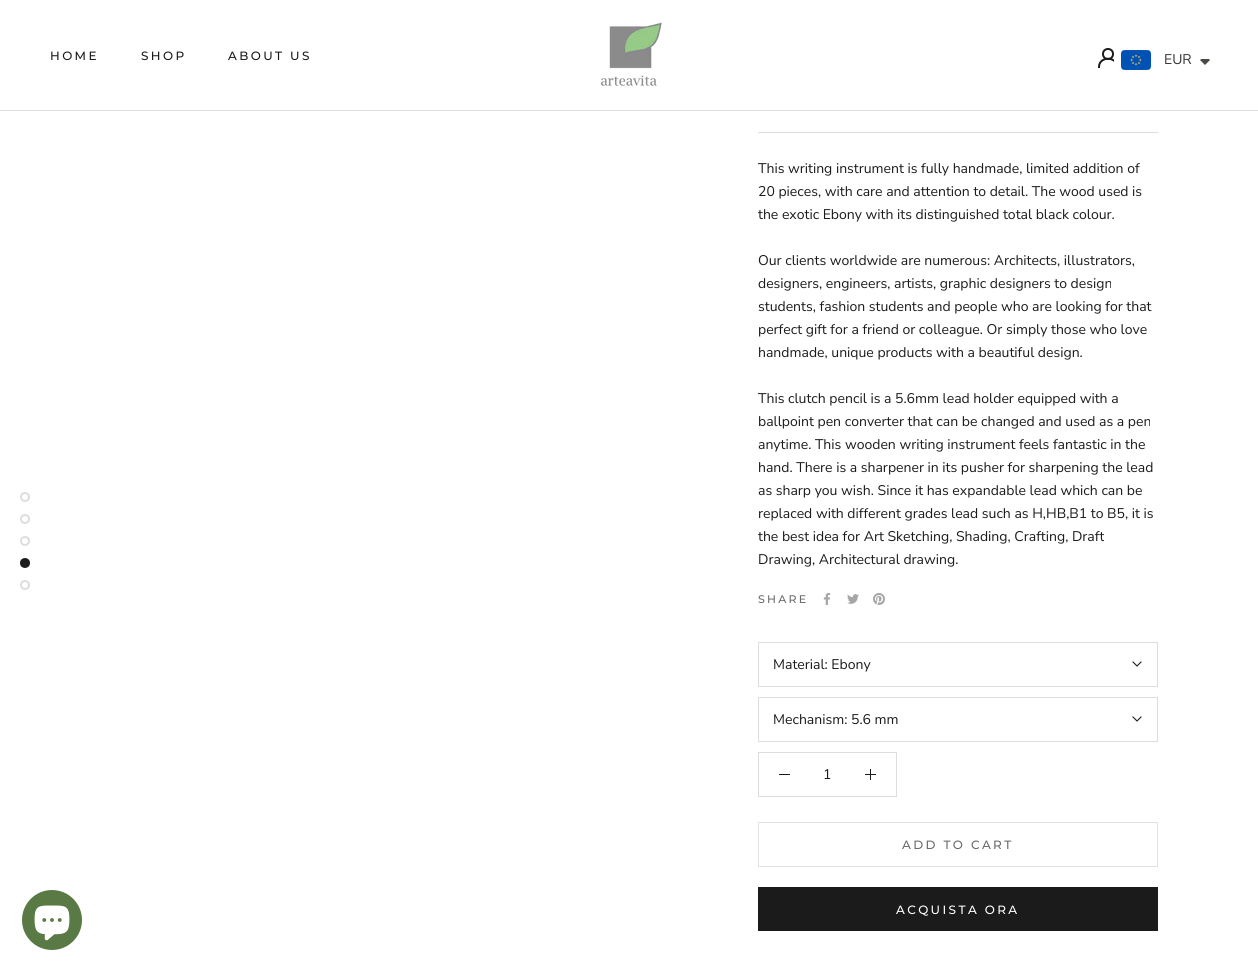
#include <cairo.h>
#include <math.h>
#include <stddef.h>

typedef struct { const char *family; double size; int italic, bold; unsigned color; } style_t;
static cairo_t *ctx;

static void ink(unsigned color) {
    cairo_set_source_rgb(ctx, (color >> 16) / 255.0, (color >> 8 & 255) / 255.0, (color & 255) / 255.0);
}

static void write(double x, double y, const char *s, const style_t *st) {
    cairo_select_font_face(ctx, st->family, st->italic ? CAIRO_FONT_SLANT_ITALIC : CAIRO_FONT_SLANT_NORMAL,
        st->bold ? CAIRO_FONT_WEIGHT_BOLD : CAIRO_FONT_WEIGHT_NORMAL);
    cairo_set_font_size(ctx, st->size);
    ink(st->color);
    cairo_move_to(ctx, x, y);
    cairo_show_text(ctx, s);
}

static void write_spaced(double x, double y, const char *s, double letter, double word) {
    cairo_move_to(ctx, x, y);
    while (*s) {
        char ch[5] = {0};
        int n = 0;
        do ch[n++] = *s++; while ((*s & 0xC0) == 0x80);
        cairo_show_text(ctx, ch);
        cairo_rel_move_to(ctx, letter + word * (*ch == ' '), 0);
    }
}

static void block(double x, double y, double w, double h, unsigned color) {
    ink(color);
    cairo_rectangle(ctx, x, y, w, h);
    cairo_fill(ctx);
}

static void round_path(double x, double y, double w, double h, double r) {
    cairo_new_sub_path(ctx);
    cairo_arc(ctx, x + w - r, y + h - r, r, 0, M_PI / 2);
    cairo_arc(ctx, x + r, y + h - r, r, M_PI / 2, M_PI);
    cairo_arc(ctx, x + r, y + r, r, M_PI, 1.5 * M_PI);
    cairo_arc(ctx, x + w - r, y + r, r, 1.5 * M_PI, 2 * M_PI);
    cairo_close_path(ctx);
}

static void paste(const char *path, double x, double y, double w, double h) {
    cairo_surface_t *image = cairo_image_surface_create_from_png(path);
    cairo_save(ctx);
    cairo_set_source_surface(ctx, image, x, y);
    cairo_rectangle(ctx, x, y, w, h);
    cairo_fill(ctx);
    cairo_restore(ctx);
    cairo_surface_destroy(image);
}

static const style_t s1 = {"Nunito Sans", 14, 0, 0, 0x1c1b1b};
static const style_t s2 = {"Nunito Sans", 14, 0, 0, 0x333333};

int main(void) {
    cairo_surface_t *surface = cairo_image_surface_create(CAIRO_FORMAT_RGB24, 1258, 971);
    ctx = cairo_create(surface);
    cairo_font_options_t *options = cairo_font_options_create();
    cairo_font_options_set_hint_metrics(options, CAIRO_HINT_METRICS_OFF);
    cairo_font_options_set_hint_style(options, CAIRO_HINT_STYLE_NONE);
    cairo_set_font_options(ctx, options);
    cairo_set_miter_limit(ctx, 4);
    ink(0xffffff);
    cairo_paint(ctx);
    block(0, 110, 1258, 1, 0xdddddd);
    cairo_select_font_face(ctx, "Montserrat Medium", CAIRO_FONT_SLANT_NORMAL, CAIRO_FONT_WEIGHT_NORMAL);
    cairo_set_font_size(ctx, 12);
    ink(0x1c1b1b);
    write_spaced(50, 60, "HOME", 2.4, 0);
    write_spaced(141, 60, "SHOP", 2.4, 0);
    write_spaced(228, 60, "ABOUT US", 2.4, 0);
    paste("pic1.png", 600, 22, 62, 64);
    cairo_new_path(ctx);
    cairo_move_to(ctx, 1099, 67);
    cairo_curve_to(ctx, 1099, 56, 1117, 56, 1117, 67);
    cairo_set_line_cap(ctx, CAIRO_LINE_CAP_SQUARE);
    cairo_stroke(ctx);
    cairo_arc(ctx, 1108, 54, 5, 0, 2 * M_PI);
    cairo_set_line_cap(ctx, CAIRO_LINE_CAP_BUTT);
    cairo_stroke(ctx);
    cairo_arc(ctx, 25, 497, 4, 0, 2 * M_PI);
    ink(0xdddddd);
    cairo_stroke(ctx);
    cairo_arc(ctx, 25, 519, 4, 0, 2 * M_PI);
    cairo_stroke(ctx);
    cairo_arc(ctx, 25, 541, 4, 0, 2 * M_PI);
    cairo_stroke(ctx);
    ink(0x1c1b1b);
    cairo_arc(ctx, 25, 563, 4, 0, 2 * M_PI);
    cairo_fill_preserve(ctx);
    cairo_stroke(ctx);
    cairo_arc(ctx, 25, 585, 4, 0, 2 * M_PI);
    ink(0xdddddd);
    cairo_stroke(ctx);
    block(758, 132, 400, 1, 0xdddddd);
    write(758, 173, "This writing instrument is fully handmade, limited addition of", &s1);
    write(758, 196, "20 pieces, with care and attention to detail. The wood used is", &s1);
    write(758, 219, "the exotic Ebony with its distinguished total black colour.", &s1);
    write(758, 265, "Our clients worldwide are numerous: Architects, illustrators,", &s1);
    write(758, 288, "designers, engineers, artists, graphic designers to design", &s1);
    write(758, 311, "students, fashion students and people who are looking for that", &s1);
    write(758, 334, "perfect gift for a friend or colleague. Or simply those who love", &s1);
    write(758, 357, "handmade, unique products with a beautiful design.", &s1);
    write(758, 403, "This clutch pencil is a 5.6mm lead holder equipped with a", &s1);
    write(758, 426, "ballpoint pen converter that can be changed and used as a pen", &s1);
    write(758, 449, "anytime. This wooden writing instrument feels fantastic in the", &s1);
    write(758, 472, "hand. There is a sharpener in its pusher for sharpening the lead", &s1);
    write(758, 495, "as sharp you wish. Since it has expandable lead which can be", &s1);
    write(758, 518, "replaced with different grades lead such as H,HB,B1 to B5, it is", &s1);
    write(758, 541, "the best idea for Art Sketching, Shading, Crafting, Draft", &s1);
    write(758, 564, "Drawing, Architectural drawing.", &s1);
    cairo_select_font_face(ctx, "Montserrat Medium", CAIRO_FONT_SLANT_NORMAL, CAIRO_FONT_WEIGHT_NORMAL);
    cairo_set_font_size(ctx, 11);
    ink(0x6a6a6a);
    write_spaced(758, 603, "SHARE", 2.25, 0);
    paste("pic2.png", 823, 593, 8, 12);
    paste("pic3.png", 847, 594, 12, 10);
    paste("pic4.png", 873, 593, 12, 12);
    cairo_rectangle(ctx, 758.5, 642.5, 399, 44);
    ink(0xdddddd);
    cairo_set_line_width(ctx, 1);
    cairo_stroke(ctx);
    write(773, 669, "Material: Ebony", &s1);
    cairo_new_path(ctx);
    cairo_move_to(ctx, 1141, 662);
    cairo_line_to(ctx, 1137, 666);
    cairo_line_to(ctx, 1133, 662);
    cairo_set_line_width(ctx, 1.1);
    cairo_set_line_cap(ctx, CAIRO_LINE_CAP_SQUARE);
    cairo_stroke(ctx);
    cairo_rectangle(ctx, 758.5, 697.5, 399, 44);
    ink(0xdddddd);
    cairo_set_line_width(ctx, 1);
    cairo_set_line_cap(ctx, CAIRO_LINE_CAP_BUTT);
    cairo_stroke(ctx);
    write(773, 724, "Mechanism: 5.6 mm", &s1);
    cairo_new_path(ctx);
    cairo_move_to(ctx, 1141, 717);
    cairo_line_to(ctx, 1137, 721);
    cairo_line_to(ctx, 1133, 717);
    cairo_set_line_width(ctx, 1.1);
    cairo_set_line_cap(ctx, CAIRO_LINE_CAP_SQUARE);
    cairo_stroke(ctx);
    cairo_rectangle(ctx, 758.5, 752.5, 138, 44);
    ink(0xdddddd);
    cairo_set_line_width(ctx, 1);
    cairo_set_line_cap(ctx, CAIRO_LINE_CAP_BUTT);
    cairo_stroke(ctx);
    block(779, 774, 11, 1, 0x1c1b1b);
    write(823, 779, "1", &s1);
    block(870, 769, 1, 11, 0x1c1b1b);
    block(865, 774, 11, 1, 0x1c1b1b);
    cairo_rectangle(ctx, 758.5, 822.5, 399, 44);
    ink(0xe1e1e1);
    cairo_stroke(ctx);
    cairo_select_font_face(ctx, "Montserrat Medium", CAIRO_FONT_SLANT_NORMAL, CAIRO_FONT_WEIGHT_NORMAL);
    cairo_set_font_size(ctx, 12);
    ink(0x6a6a6a);
    write_spaced(902, 849, "ADD TO CART", 2.4, 0);
    cairo_rectangle(ctx, 758.5, 887.5, 399, 43);
    ink(0x1c1b1b);
    cairo_stroke(ctx);
    block(759, 888, 398, 42, 0x1c1b1b);
    ink(0xffffff);
    write_spaced(896, 914, "ACQUISTA ORA", 2.4, 0);
    round_path(1114, 43, 104, 34, 5);
    cairo_fill(ctx);
    paste("pic5.png", 1121, 50, 30, 20);
    write(1164, 64, "EUR", &s2);
    ink(0x474942);
    cairo_new_path(ctx);
    cairo_move_to(ctx, 1202, 59);
    cairo_curve_to(ctx, 1201, 59, 1200.5, 59.5, 1200, 60);
    cairo_line_to(ctx, 1205, 65);
    cairo_line_to(ctx, 1210, 60);
    cairo_line_to(ctx, 1209, 59);
    cairo_close_path(ctx);
    cairo_fill(ctx);
    ink(0x5a7a45);
    cairo_arc(ctx, 52, 920, 30, 0, 2 * M_PI);
    cairo_fill(ctx);
    paste("pic6.png", 34, 905, 36, 36);
    cairo_surface_write_to_png(surface, "screenshot.png");
    cairo_font_options_destroy(options);
    cairo_destroy(ctx);
    cairo_surface_destroy(surface);
    return 0;
}
